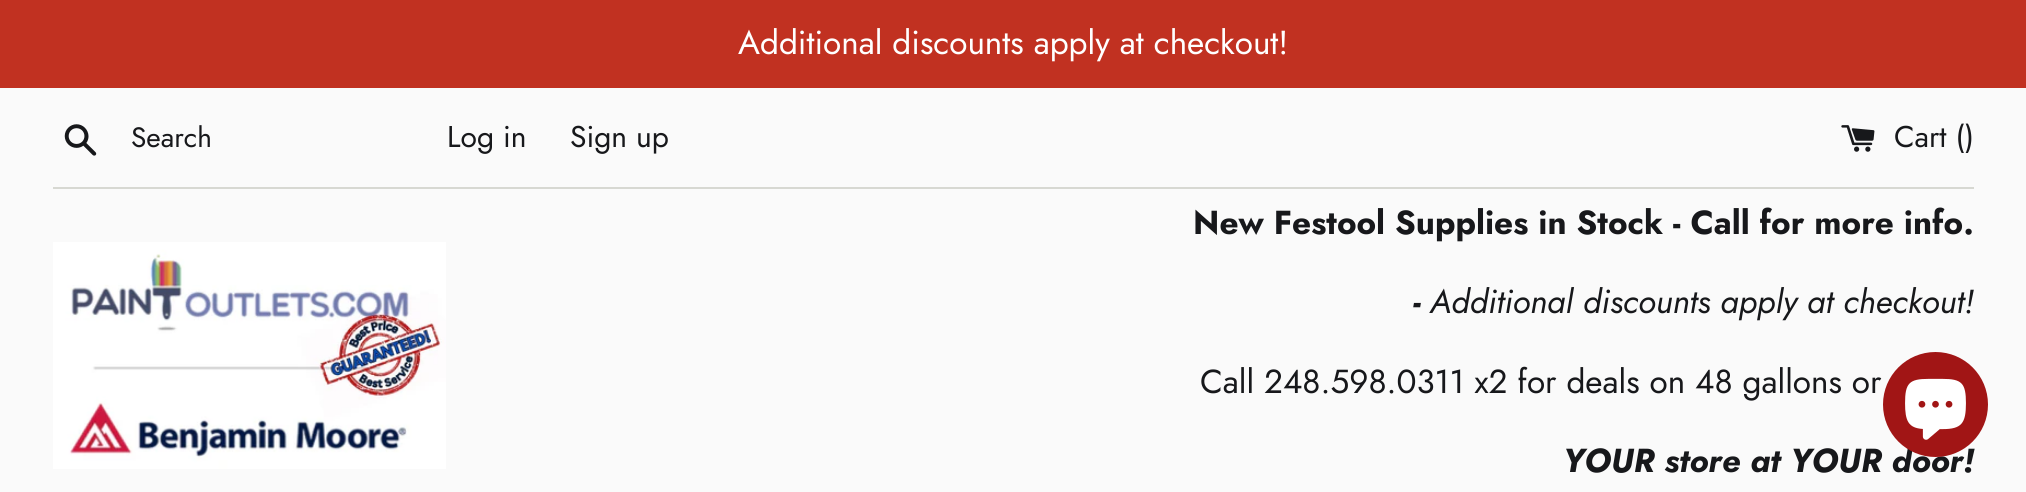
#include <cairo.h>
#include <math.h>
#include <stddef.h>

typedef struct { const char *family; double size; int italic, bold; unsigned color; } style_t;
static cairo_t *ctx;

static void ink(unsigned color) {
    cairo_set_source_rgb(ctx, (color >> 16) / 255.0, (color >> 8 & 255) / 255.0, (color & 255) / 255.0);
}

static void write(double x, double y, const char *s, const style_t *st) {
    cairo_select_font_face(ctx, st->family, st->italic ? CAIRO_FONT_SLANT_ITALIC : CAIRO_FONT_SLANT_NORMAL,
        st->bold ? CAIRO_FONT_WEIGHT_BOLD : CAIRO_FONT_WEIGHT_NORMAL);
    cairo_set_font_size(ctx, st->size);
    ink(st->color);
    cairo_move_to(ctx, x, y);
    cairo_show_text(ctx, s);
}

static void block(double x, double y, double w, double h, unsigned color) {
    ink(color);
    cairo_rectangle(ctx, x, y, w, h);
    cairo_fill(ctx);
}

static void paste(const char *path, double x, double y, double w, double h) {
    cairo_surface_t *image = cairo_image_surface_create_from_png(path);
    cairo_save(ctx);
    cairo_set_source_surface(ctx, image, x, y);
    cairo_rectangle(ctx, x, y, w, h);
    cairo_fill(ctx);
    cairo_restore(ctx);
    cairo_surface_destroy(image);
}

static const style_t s1 = {"Jost", 33.25, 0, 0, 0xffffff};
static const style_t s2 = {"Jost", 28, 0, 0, 0x17181b};
static const style_t s3 = {"Jost", 30, 0, 0, 0x17181b};
static const style_t s4 = {"Jost", 33.25, 0, 1, 0x17181b};
static const style_t s5 = {"Jost", 33.25, 1, 1, 0x17181b};
static const style_t s6 = {"Jost", 33.25, 1, 0, 0x17181b};
static const style_t s7 = {"Jost", 33.25, 0, 0, 0x17181b};

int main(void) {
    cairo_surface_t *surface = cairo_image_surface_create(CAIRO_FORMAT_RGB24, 2026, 492);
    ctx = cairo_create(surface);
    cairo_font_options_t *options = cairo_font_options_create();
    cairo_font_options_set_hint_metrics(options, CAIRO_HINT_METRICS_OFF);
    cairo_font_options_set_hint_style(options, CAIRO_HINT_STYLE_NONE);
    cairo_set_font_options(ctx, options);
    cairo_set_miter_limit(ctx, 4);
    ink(0xfafafa);
    cairo_paint(ctx);
    block(0, 0, 2026, 88, 0xc13121);
    write(738, 54, "Additional discounts apply at checkout!", &s1);
    paste("pic1.png", 64, 124, 33, 32);
    write(131, 147, "Search", &s2);
    write(447, 147, "Log in", &s3);
    write(570, 147, "Sign up", &s3);
    paste("pic2.png", 1841, 125, 34, 27);
    write(1894, 147, "Cart ()", &s3);
    block(53, 187, 1921, 2, 0xd7d8d2);
    paste("pic3.png", 53, 242, 393, 227);
    write(1193, 234, "New Festool Supplies in Stock - Call for more info.", &s4);
    write(1413, 313, "-", &s5);
    write(1430, 313, "Additional discounts apply at checkout!", &s6);
    write(1200, 393, "Call 248.598.0311 x2 for deals on 48 gallons or", &s7);
    write(1563, 472, "YOUR store at YOUR door!", &s5);
    ink(0xa11515);
    cairo_new_path(ctx);
    cairo_arc(ctx, 1935.5, 404.5, 52.5, 0, 2 * M_PI);
    cairo_fill(ctx);
    paste("pic4.png", 1905, 378, 61, 62);
    cairo_surface_write_to_png(surface, "screenshot.png");
    cairo_font_options_destroy(options);
    cairo_destroy(ctx);
    cairo_surface_destroy(surface);
    return 0;
}
